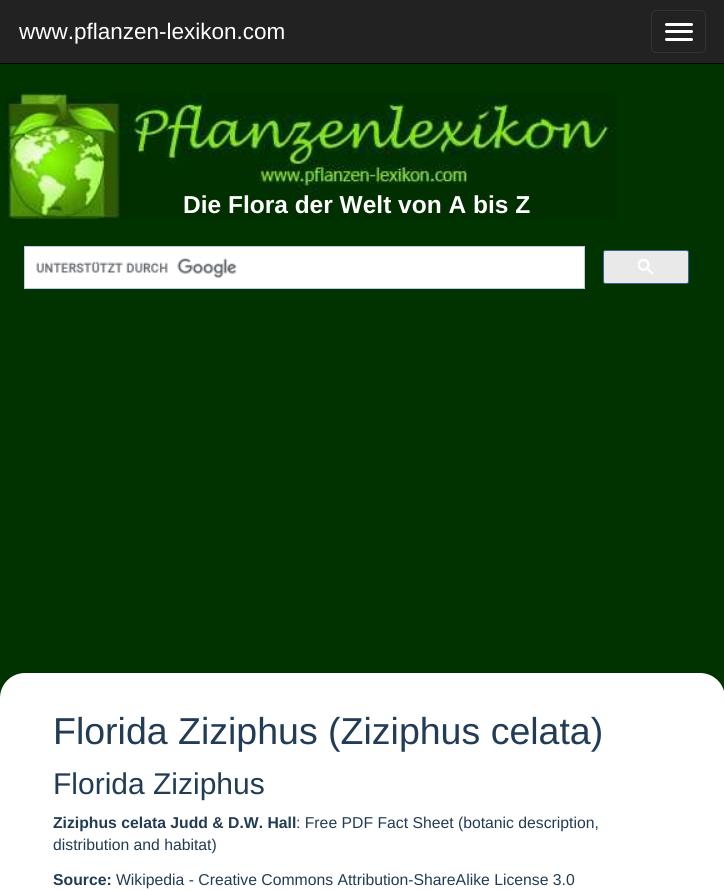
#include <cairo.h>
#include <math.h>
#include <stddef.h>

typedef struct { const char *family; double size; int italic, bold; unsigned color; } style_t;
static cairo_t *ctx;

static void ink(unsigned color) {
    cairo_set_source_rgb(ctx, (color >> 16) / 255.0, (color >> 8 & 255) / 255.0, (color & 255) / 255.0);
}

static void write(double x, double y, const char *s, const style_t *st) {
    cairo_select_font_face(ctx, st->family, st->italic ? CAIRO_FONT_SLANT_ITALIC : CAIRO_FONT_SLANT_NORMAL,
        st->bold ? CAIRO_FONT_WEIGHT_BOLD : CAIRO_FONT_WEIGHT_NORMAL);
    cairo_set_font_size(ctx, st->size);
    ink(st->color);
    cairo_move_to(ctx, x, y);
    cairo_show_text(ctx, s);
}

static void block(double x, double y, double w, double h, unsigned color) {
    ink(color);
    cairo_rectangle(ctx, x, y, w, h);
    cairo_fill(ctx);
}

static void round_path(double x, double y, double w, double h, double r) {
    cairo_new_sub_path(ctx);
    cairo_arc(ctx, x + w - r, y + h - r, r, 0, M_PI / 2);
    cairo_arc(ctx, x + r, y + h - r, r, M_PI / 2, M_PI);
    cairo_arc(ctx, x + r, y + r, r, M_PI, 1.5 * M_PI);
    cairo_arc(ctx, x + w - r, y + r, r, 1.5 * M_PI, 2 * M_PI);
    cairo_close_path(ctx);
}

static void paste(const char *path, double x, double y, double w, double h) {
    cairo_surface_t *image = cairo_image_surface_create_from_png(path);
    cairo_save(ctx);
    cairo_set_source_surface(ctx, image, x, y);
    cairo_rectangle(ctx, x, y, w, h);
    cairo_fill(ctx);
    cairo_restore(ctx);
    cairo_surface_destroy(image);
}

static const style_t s1 = {"Liberation Sans", 22.5, 0, 0, 0xffffff};
static const style_t s2 = {"Liberation Sans", 24.5, 0, 1, 0xffffff};
static const style_t s3 = {"Liberation Sans", 37.5, 0, 0, 0x223c55};
static const style_t s4 = {"Liberation Sans", 30, 0, 0, 0x223c55};
static const style_t s5 = {"Liberation Sans", 15.75, 0, 1, 0x223c55};
static const style_t s6 = {"Liberation Sans", 15.75, 0, 0, 0x223c55};

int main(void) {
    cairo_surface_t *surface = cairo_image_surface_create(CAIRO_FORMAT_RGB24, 724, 890);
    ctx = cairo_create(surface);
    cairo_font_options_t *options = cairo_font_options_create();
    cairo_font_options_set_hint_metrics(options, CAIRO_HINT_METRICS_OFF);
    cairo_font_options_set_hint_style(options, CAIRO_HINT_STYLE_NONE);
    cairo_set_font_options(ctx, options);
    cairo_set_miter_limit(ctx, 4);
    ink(0x003300);
    cairo_paint(ctx);
    block(0, 0, 724, 63, 0x222222);
    block(0, 63, 724, 1, 0x080808);
    write(19, 39, "www.pflanzen-lexikon.com", &s1);
    round_path(651.5, 10.5, 54, 42, 4.5);
    ink(0x333333);
    cairo_set_line_width(ctx, 1);
    cairo_stroke(ctx);
    ink(0xffffff);
    round_path(665, 23, 28, 3, 1.5);
    cairo_fill(ctx);
    round_path(665, 30, 28, 3, 1.5);
    cairo_fill(ctx);
    round_path(665, 38, 28, 3, 1.5);
    cairo_fill(ctx);
    paste("pic1.png", 6, 93, 611, 126);
    write(183, 213, "Die Flora der Welt von A bis Z", &s2);
    cairo_rectangle(ctx, 24.5, 246.5, 560, 42);
    cairo_fill_preserve(ctx);
    ink(0xbccdf0);
    cairo_stroke(ctx);
    paste("pic2.png", 36, 258, 201, 20);
    ink(0xe9e9e9);
    round_path(603.5, 250.5, 85, 33, 2);
    cairo_fill_preserve(ctx);
    ink(0x336699);
    cairo_stroke(ctx);
    paste("pic3.png", 638, 259, 16, 16);
    ink(0xffffff);
    round_path(0, 673, 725, 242, 25);
    cairo_fill(ctx);
    write(53, 744, "Florida Ziziphus (Ziziphus celata)", &s3);
    write(53, 794, "Florida Ziziphus", &s4);
    write(53, 828, "Ziziphus celata Judd & D.W. Hall", &s5);
    write(296, 828, ": Free PDF Fact Sheet (botanic description,", &s6);
    write(53, 850, "distribution and habitat)", &s6);
    write(53, 885, "Source:", &s5);
    write(116, 885, "Wikipedia - Creative Commons Attribution-ShareAlike License 3.0", &s6);
    cairo_surface_write_to_png(surface, "screenshot.png");
    cairo_font_options_destroy(options);
    cairo_destroy(ctx);
    cairo_surface_destroy(surface);
    return 0;
}
